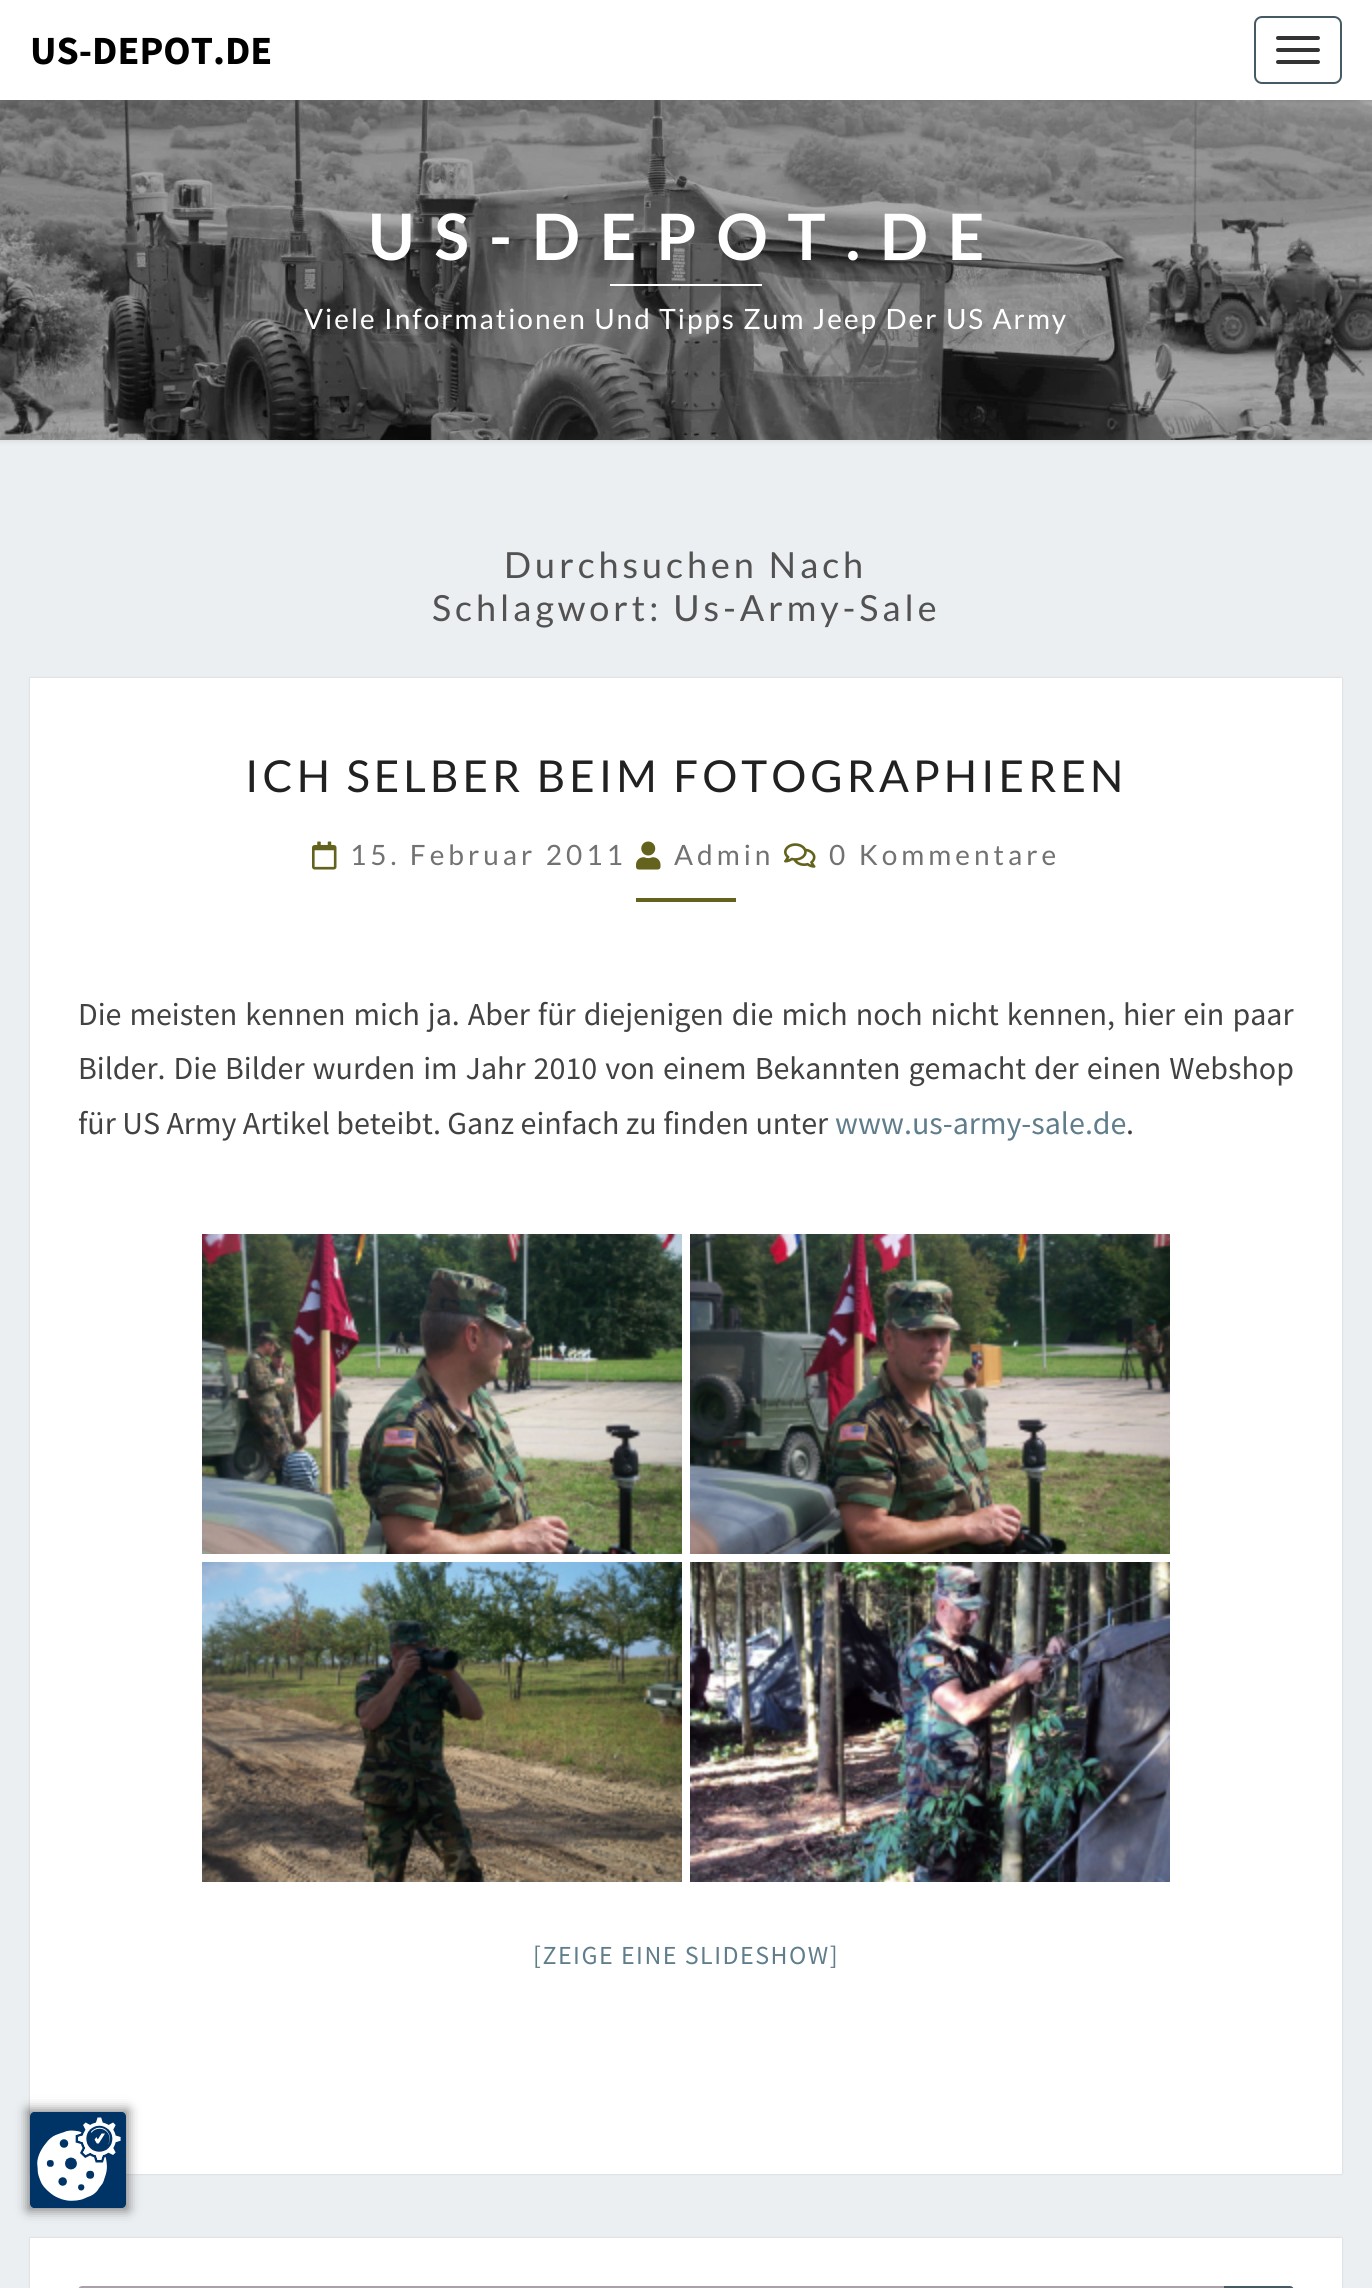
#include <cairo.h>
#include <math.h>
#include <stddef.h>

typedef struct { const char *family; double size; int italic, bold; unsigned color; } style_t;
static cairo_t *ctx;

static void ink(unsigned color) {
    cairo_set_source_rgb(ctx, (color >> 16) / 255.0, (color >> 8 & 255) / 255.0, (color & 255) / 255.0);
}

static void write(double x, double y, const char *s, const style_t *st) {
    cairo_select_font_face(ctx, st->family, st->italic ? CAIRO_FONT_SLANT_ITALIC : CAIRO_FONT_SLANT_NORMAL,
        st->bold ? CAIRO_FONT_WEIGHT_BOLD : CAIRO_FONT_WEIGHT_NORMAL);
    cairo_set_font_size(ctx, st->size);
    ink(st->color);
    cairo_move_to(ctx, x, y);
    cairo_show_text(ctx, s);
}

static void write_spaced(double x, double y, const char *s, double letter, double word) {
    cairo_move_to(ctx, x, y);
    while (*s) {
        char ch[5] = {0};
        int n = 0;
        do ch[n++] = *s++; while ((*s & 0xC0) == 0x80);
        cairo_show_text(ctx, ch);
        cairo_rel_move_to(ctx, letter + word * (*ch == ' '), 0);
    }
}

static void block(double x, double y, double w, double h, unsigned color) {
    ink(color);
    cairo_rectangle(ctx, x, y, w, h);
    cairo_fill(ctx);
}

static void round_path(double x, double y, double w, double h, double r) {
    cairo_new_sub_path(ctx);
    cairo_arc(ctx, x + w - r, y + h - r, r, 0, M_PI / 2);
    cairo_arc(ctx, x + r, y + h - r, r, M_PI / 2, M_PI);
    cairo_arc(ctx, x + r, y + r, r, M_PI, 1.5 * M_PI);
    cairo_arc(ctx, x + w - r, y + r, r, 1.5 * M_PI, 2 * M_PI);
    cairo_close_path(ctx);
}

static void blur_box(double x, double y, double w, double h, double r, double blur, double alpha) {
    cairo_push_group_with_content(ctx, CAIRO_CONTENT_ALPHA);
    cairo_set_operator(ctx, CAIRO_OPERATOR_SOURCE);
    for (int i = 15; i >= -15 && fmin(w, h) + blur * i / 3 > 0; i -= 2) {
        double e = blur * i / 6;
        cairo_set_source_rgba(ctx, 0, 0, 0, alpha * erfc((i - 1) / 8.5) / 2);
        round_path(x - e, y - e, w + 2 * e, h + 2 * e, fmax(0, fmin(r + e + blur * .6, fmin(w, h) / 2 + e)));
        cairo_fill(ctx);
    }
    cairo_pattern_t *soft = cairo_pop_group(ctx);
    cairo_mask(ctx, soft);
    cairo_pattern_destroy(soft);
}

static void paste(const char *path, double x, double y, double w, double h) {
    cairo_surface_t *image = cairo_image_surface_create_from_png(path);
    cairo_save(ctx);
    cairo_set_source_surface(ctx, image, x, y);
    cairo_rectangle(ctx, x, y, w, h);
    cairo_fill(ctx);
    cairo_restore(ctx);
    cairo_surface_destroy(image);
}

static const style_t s1 = {"Source Sans Pro", 40, 0, 1, 0x000000};
static const style_t s2 = {"Source Sans Pro", 32, 0, 0, 0x424242};
static const style_t s3 = {"Source Sans Pro", 32, 0, 0, 0x607d8b};

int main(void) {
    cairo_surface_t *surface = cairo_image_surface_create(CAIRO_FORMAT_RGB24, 1372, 2288);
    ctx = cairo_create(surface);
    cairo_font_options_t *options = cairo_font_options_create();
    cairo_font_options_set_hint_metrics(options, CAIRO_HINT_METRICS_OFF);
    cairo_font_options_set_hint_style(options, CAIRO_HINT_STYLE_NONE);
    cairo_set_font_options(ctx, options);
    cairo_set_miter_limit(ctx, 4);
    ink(0xeceff1);
    cairo_paint(ctx);
    ink(0xb6b6b6);
    blur_box(-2, 98, 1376, 344, 0, 2, 0.3);
    paste("pic1.png", 0, 100, 1372, 340);
    ink(0x646464);
    blur_box(0, 2, 1372, 100, 0, 1, 0.2);
    block(0, 0, 1372, 100, 0xffffff);
    write(30, 64, "US-DEPOT.DE", &s1);
    round_path(1255, 17, 86, 66, 7);
    ink(0x455a64);
    cairo_stroke(ctx);
    ink(0x333333);
    round_path(1276, 36, 44, 4, 2);
    cairo_fill(ctx);
    round_path(1276, 48, 44, 4, 2);
    cairo_fill(ctx);
    round_path(1276, 60, 44, 4, 2);
    cairo_fill(ctx);
    cairo_select_font_face(ctx, "Lato", CAIRO_FONT_SLANT_NORMAL, CAIRO_FONT_WEIGHT_BOLD);
    cairo_set_font_size(ctx, 64);
    ink(0xffffff);
    write_spaced(368, 260, "US-DEPOT.DE", 20, 0);
    block(610, 284, 152, 2, 0xffffff);
    cairo_select_font_face(ctx, "Lato", CAIRO_FONT_SLANT_NORMAL, CAIRO_FONT_WEIGHT_NORMAL);
    cairo_set_font_size(ctx, 28);
    write_spaced(304, 329, "Viele Informationen Und Tipps Zum Jeep Der US Army", 2, 0);
    cairo_set_font_size(ctx, 36);
    ink(0x525252);
    write_spaced(504, 578, "Durchsuchen Nach", 4, 0);
    write_spaced(432, 621, "Schlagwort: Us-Army-Sale", 4, 0);
    ink(0x000000);
    blur_box(30, 678, 1312, 1496, 0, 1, 0.15);
    block(30, 678, 1312, 1496, 0xffffff);
    cairo_set_font_size(ctx, 44);
    ink(0x212121);
    write_spaced(245, 792, "ICH SELBER BEIM FOTOGRAPHIEREN", 4, 0);
    paste("pic2.png", 312, 841, 25, 29);
    cairo_set_font_size(ctx, 28);
    ink(0x727272);
    write_spaced(350, 865, "15. Februar 2011", 4, 0);
    paste("pic3.png", 636, 841, 25, 29);
    write_spaced(674, 865, "Admin", 4, 0);
    paste("pic4.png", 784, 843, 32, 25);
    write_spaced(829, 865, "0 Kommentare", 4, 0);
    block(636, 898, 100, 4, 0x63631d);
    cairo_select_font_face(ctx, "Source Sans Pro", CAIRO_FONT_SLANT_NORMAL, CAIRO_FONT_WEIGHT_NORMAL);
    cairo_set_font_size(ctx, 32);
    ink(0x424242);
    write_spaced(78, 1025, "Die meisten kennen mich ja. Aber für diejenigen die mich noch nicht kennen, hier ein paar", 0, 1.6);
    write_spaced(78, 1079, "Bilder. Die Bilder wurden im Jahr 2010 von einem Bekannten gemacht der einen Webshop", 0, 1.6);
    write(78, 1134, "für US Army Artikel beteibt. Ganz einfach zu finden unter", &s2);
    write(835, 1134, "www.us-army-sale.de", &s3);
    write(1126, 1134, ".", &s2);
    paste("pic5.png", 202, 1234, 480, 320);
    paste("pic6.png", 690, 1234, 480, 320);
    paste("pic7.png", 202, 1562, 480, 320);
    paste("pic8.png", 690, 1562, 480, 320);
    cairo_set_font_size(ctx, 26);
    ink(0x607d8b);
    write_spaced(533, 1964, "[ZEIGE EINE SLIDESHOW]", 1.5, 0);
    ink(0x000000);
    blur_box(30, 2238, 1312, 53, 0, 1, 0.15);
    block(30, 2238, 1312, 50, 0xffffff);
    cairo_new_path(ctx);
    cairo_move_to(ctx, 82, 2287);
    cairo_line_to(ctx, 1223, 2287);
    cairo_line_to(ctx, 1223, 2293);
    cairo_line_to(ctx, 82, 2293);
    cairo_curve_to(ctx, 80.5, 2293, 79, 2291.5, 79, 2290);
    cairo_curve_to(ctx, 79, 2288.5, 80.5, 2287, 82, 2287);
    cairo_close_path(ctx);
    ink(0xaaa1a8);
    cairo_stroke(ctx);
    cairo_new_path(ctx);
    cairo_move_to(ctx, 1225, 2287);
    cairo_line_to(ctx, 1290, 2287);
    cairo_curve_to(ctx, 1291.5, 2287, 1293, 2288.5, 1293, 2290);
    cairo_curve_to(ctx, 1293, 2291.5, 1291.5, 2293, 1290, 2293);
    cairo_line_to(ctx, 1225, 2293);
    cairo_close_path(ctx);
    ink(0x455a64);
    cairo_stroke(ctx);
    ink(0x000000);
    blur_box(28, 2110, 100, 100, 0, 6, 0.5);
    paste("pic9.png", 30, 2112, 96, 96);
    cairo_surface_write_to_png(surface, "screenshot.png");
    cairo_font_options_destroy(options);
    cairo_destroy(ctx);
    cairo_surface_destroy(surface);
    return 0;
}
